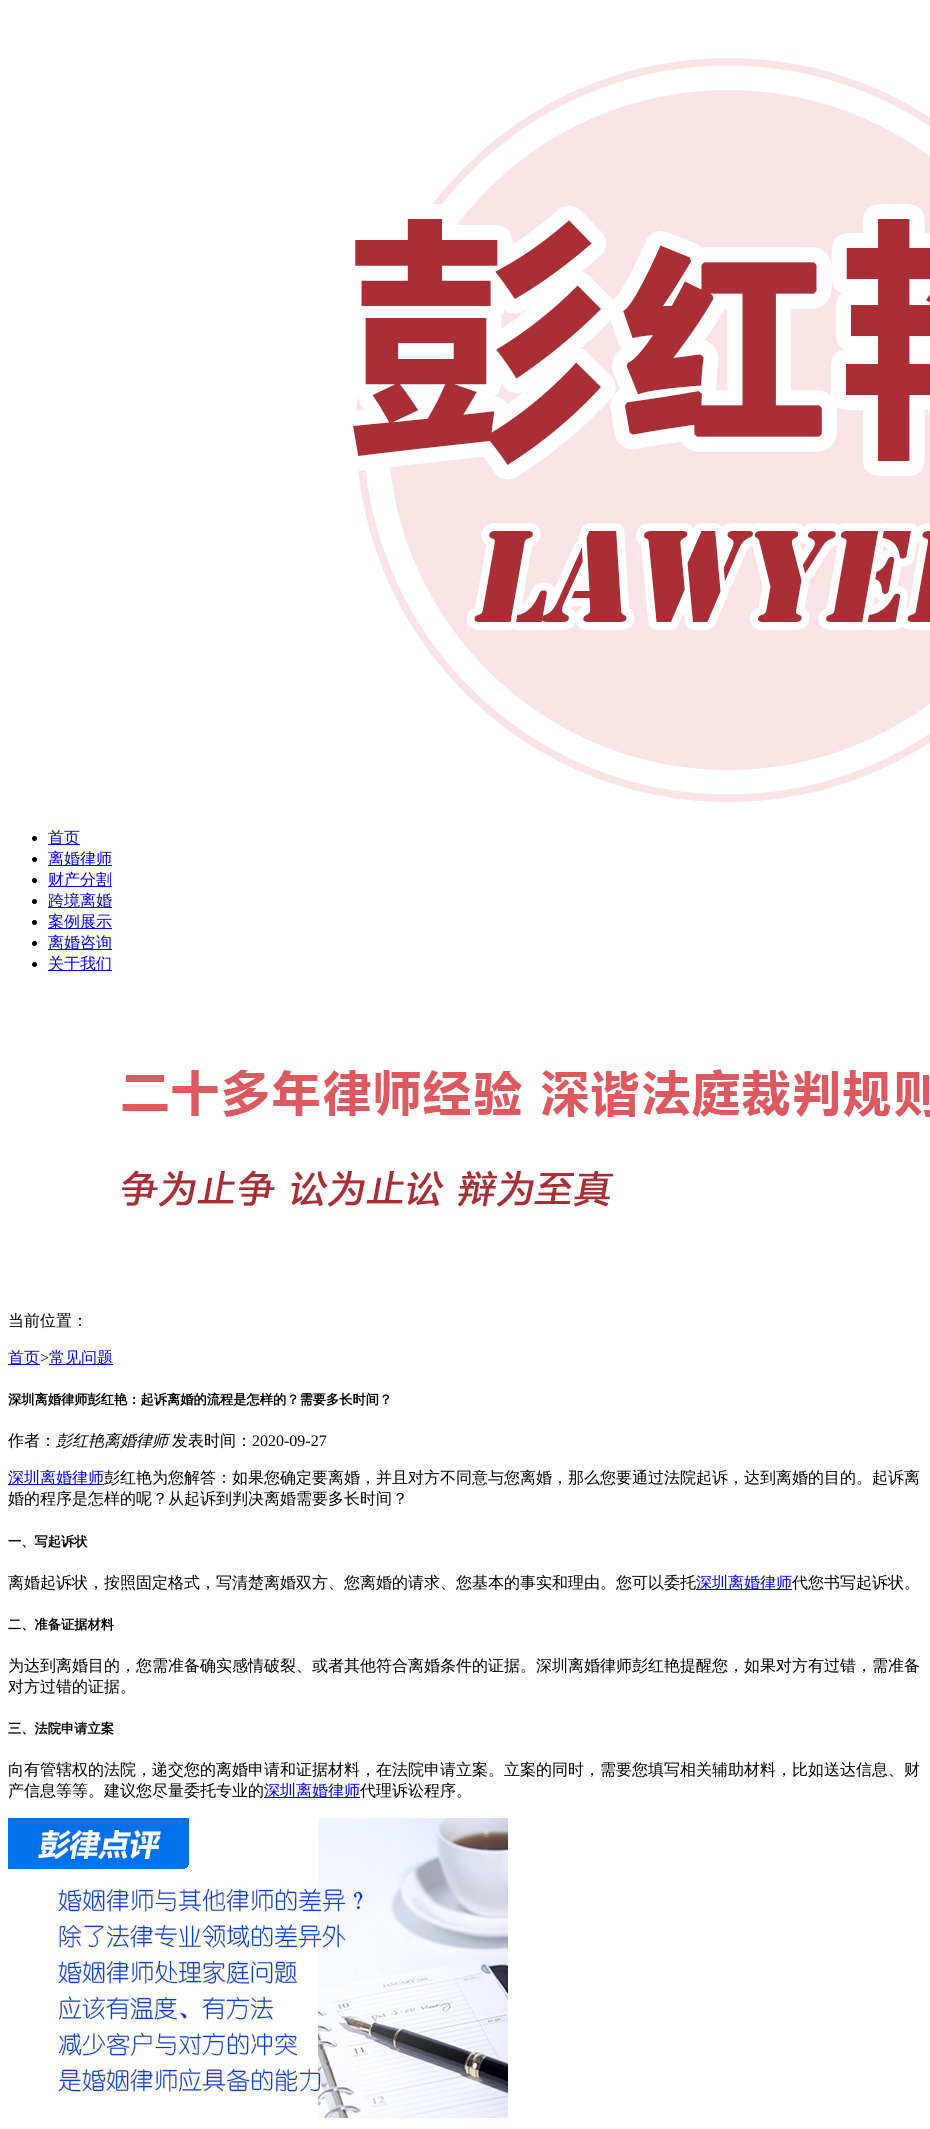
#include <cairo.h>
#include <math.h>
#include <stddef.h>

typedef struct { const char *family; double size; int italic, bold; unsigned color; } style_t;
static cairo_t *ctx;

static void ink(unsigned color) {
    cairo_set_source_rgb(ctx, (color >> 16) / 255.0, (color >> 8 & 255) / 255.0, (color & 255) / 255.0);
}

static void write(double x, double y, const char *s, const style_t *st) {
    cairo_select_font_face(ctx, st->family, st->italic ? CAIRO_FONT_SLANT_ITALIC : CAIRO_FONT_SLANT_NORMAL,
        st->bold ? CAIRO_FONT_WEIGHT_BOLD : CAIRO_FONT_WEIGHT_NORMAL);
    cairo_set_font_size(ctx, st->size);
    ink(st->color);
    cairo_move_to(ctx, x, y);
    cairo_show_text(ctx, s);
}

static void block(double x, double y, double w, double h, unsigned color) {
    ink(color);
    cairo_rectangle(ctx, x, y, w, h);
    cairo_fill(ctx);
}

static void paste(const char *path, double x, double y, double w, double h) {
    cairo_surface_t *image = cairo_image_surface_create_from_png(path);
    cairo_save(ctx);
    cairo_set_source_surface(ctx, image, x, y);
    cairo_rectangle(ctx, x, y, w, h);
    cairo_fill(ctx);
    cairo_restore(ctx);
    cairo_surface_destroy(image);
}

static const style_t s1 = {"WenQuanYi Zen Hei Medium", 16, 0, 0, 0x0000ee};
static const style_t s2 = {"WenQuanYi Zen Hei Medium", 16, 0, 0, 0x000000};
static const style_t s3 = {"Liberation Serif", 16, 0, 0, 0x000000};
static const style_t s4 = {"WenQuanYi Zen Hei", 13.25, 0, 1, 0x000000};
static const style_t s5 = {"WenQuanYi Zen Hei Medium", 16, 1, 0, 0x000000};

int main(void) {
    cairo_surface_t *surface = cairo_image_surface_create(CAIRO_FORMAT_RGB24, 930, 2129);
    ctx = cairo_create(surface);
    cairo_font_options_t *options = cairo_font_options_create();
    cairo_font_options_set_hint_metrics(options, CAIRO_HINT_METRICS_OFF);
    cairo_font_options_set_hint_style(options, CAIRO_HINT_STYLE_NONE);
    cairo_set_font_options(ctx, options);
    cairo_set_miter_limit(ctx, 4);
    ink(0xffffff);
    cairo_paint(ctx);
    paste("pic1.png", 353, 58, 577, 744);
    ink(0x000000);
    cairo_arc(ctx, 34.5, 838.5, 2.5, 0, 2 * M_PI);
    cairo_fill(ctx);
    block(48, 844, 32, 1, 0x0000ee);
    write(48, 843, "首页", &s1);
    ink(0x000000);
    cairo_new_path(ctx);
    cairo_arc(ctx, 34.5, 859.5, 2.5, 0, 2 * M_PI);
    cairo_fill(ctx);
    block(48, 865, 64, 1, 0x0000ee);
    write(48, 864, "离婚律师", &s1);
    ink(0x000000);
    cairo_new_path(ctx);
    cairo_arc(ctx, 34.5, 880.5, 2.5, 0, 2 * M_PI);
    cairo_fill(ctx);
    block(48, 886, 64, 1, 0x0000ee);
    write(48, 885, "财产分割", &s1);
    ink(0x000000);
    cairo_new_path(ctx);
    cairo_arc(ctx, 34.5, 901.5, 2.5, 0, 2 * M_PI);
    cairo_fill(ctx);
    block(48, 907, 64, 1, 0x0000ee);
    write(48, 906, "跨境离婚", &s1);
    ink(0x000000);
    cairo_new_path(ctx);
    cairo_arc(ctx, 34.5, 922.5, 2.5, 0, 2 * M_PI);
    cairo_fill(ctx);
    block(48, 928, 64, 1, 0x0000ee);
    write(48, 927, "案例展示", &s1);
    ink(0x000000);
    cairo_new_path(ctx);
    cairo_arc(ctx, 34.5, 943.5, 2.5, 0, 2 * M_PI);
    cairo_fill(ctx);
    block(48, 949, 64, 1, 0x0000ee);
    write(48, 948, "离婚咨询", &s1);
    ink(0x000000);
    cairo_new_path(ctx);
    cairo_arc(ctx, 34.5, 964.5, 2.5, 0, 2 * M_PI);
    cairo_fill(ctx);
    block(48, 970, 64, 1, 0x0000ee);
    write(48, 969, "关于我们", &s1);
    paste("pic2.png", 122, 1067, 808, 140);
    write(8, 1326, "当前位置：", &s2);
    block(8, 1364, 32, 1, 0x0000ee);
    write(8, 1363, "首页", &s1);
    write(40, 1363, ">", &s3);
    block(49, 1364, 64, 1, 0x0000ee);
    write(49, 1363, "常见问题", &s1);
    write(8, 1404, "深圳离婚律师彭红艳：起诉离婚的流程是怎样的？需要多长时间？", &s4);
    write(8, 1446, "作者：", &s2);
    write(56, 1446, "彭红艳离婚律师", &s5);
    write(172, 1446, "发表时间：", &s2);
    write(252, 1446, "2020-09-27", &s3);
    block(8, 1484, 96, 1, 0x0000ee);
    write(8, 1483, "深圳离婚律师", &s1);
    write(104, 1483, "彭红艳为您解答：如果您确定要离婚，并且对方不同意与您离婚，那么您要通过法院起诉，达到离婚的目的。起诉离", &s2);
    write(8, 1504, "婚的程序是怎样的呢？从起诉到判决离婚需要多长时间？", &s2);
    write(8, 1546, "一、写起诉状", &s4);
    write(8, 1588, "离婚起诉状，按照固定格式，写清楚离婚双方、您离婚的请求、您基本的事实和理由。您可以委托", &s2);
    block(696, 1589, 96, 1, 0x0000ee);
    write(696, 1588, "深圳离婚律师", &s1);
    write(792, 1588, "代您书写起诉状。", &s2);
    write(8, 1629, "二、准备证据材料", &s4);
    write(8, 1671, "为达到离婚目的，您需准备确实感情破裂、或者其他符合离婚条件的证据。深圳离婚律师彭红艳提醒您，如果对方有过错，需准备", &s2);
    write(8, 1692, "对方过错的证据。", &s2);
    write(8, 1733, "三、法院申请立案", &s4);
    write(8, 1775, "向有管辖权的法院，递交您的离婚申请和证据材料，在法院申请立案。立案的同时，需要您填写相关辅助材料，比如送达信息、财", &s2);
    write(8, 1796, "产信息等等。建议您尽量委托专业的", &s2);
    block(264, 1797, 96, 1, 0x0000ee);
    write(264, 1796, "深圳离婚律师", &s1);
    write(360, 1796, "代理诉讼程序。", &s2);
    paste("pic3.png", 8, 1818, 500, 300);
    cairo_surface_write_to_png(surface, "screenshot.png");
    cairo_font_options_destroy(options);
    cairo_destroy(ctx);
    cairo_surface_destroy(surface);
    return 0;
}
